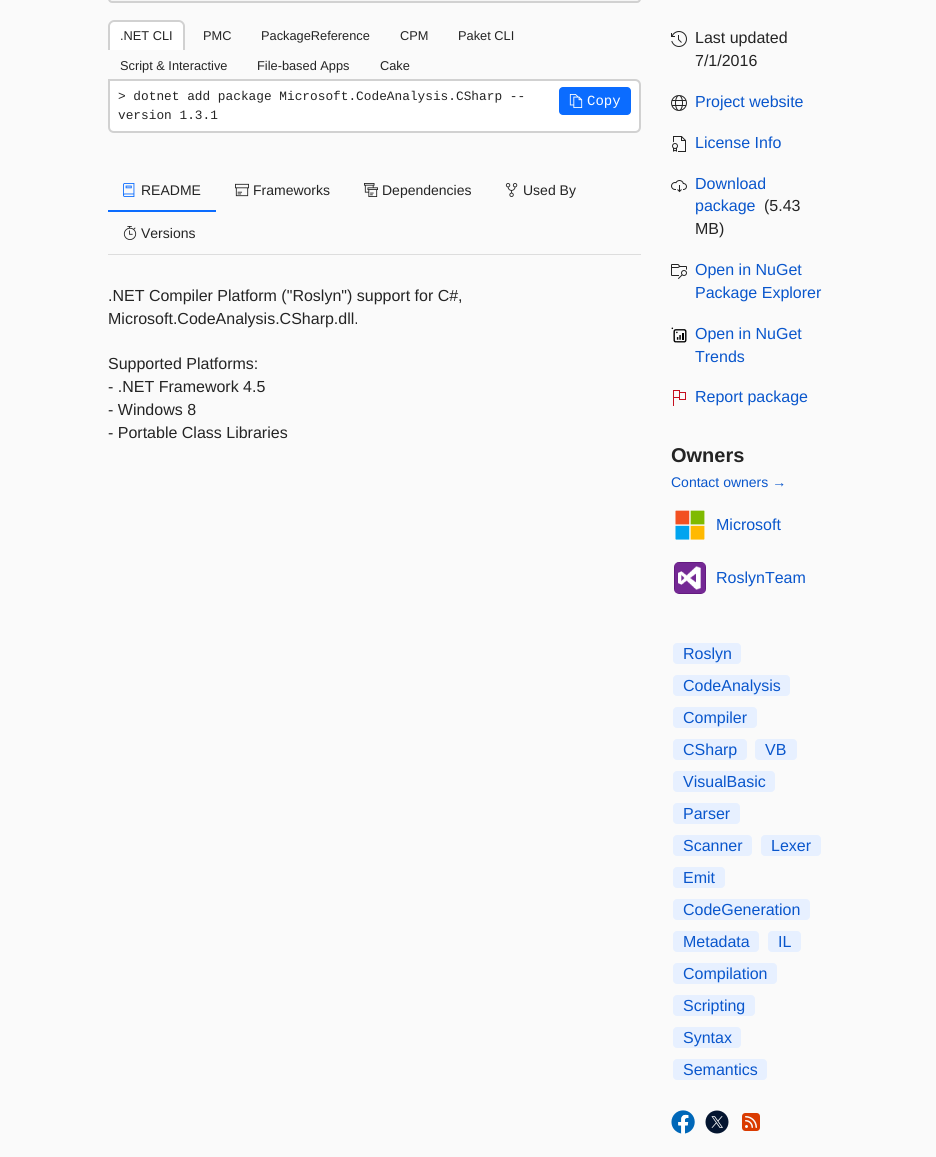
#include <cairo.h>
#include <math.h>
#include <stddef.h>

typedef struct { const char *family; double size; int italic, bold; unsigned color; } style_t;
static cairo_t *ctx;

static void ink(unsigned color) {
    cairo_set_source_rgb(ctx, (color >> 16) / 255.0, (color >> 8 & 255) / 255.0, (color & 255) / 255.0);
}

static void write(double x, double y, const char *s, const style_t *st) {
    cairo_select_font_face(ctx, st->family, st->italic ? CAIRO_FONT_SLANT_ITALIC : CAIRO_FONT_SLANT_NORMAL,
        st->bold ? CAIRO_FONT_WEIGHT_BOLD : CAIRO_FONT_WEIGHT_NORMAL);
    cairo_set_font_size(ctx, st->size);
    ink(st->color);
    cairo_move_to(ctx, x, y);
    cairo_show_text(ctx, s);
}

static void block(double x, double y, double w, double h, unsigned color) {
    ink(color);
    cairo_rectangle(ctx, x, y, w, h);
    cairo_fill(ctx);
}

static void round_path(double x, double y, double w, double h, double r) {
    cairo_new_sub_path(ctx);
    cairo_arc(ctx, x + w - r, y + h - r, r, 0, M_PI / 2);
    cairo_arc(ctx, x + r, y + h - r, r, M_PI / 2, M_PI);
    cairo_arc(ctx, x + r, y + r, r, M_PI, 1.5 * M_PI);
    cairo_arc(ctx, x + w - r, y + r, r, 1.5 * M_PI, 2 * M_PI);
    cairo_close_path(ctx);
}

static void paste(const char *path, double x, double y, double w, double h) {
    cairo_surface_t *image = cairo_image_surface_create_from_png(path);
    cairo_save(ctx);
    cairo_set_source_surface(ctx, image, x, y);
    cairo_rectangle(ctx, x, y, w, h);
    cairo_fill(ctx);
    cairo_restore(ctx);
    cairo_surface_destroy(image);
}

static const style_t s1 = {"Liberation Sans", 12.8, 0, 0, 0x242424};
static const style_t s2 = {"Liberation Mono", 12.8, 0, 0, 0x242424};
static const style_t s3 = {"Liberation Mono", 14, 0, 0, 0xffffff};
static const style_t s4 = {"Liberation Sans", 14, 0, 0, 0x242424};
static const style_t s5 = {"Liberation Sans", 16, 0, 0, 0x242424};
static const style_t s6 = {"Liberation Sans", 16, 0, 0, 0x0956cc};
static const style_t s7 = {"Liberation Sans", 20, 0, 1, 0x242424};
static const style_t s8 = {"Liberation Sans", 14, 0, 0, 0x0956cc};

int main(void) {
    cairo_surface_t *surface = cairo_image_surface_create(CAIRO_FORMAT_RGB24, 936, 1157);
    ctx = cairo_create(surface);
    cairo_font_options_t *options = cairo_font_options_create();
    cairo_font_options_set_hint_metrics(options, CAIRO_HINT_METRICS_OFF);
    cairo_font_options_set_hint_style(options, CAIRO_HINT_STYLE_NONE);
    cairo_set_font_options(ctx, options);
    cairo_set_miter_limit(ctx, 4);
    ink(0xfafafa);
    cairo_paint(ctx);
    ink(0xf5f5f5);
    round_path(109, -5, 531, 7, 3);
    cairo_fill_preserve(ctx);
    ink(0xd1d1d1);
    cairo_stroke(ctx);
    ink(0xffffff);
    cairo_new_path(ctx);
    cairo_move_to(ctx, 114, 20);
    cairo_line_to(ctx, 179, 20);
    cairo_curve_to(ctx, 182.5, 20, 185, 22.5, 185, 26);
    cairo_line_to(ctx, 185, 50);
    cairo_line_to(ctx, 108, 50);
    cairo_line_to(ctx, 108, 26);
    cairo_curve_to(ctx, 108, 22.5, 110.5, 20, 114, 20);
    cairo_close_path(ctx);
    cairo_fill(ctx);
    ink(0xd1d1d1);
    cairo_set_fill_rule(ctx, CAIRO_FILL_RULE_EVEN_ODD);
    cairo_new_path(ctx);
    cairo_move_to(ctx, 114, 20);
    cairo_line_to(ctx, 179, 20);
    cairo_curve_to(ctx, 182, 20, 185, 23, 185, 26);
    cairo_line_to(ctx, 185, 50);
    cairo_line_to(ctx, 108, 50);
    cairo_line_to(ctx, 108, 26);
    cairo_curve_to(ctx, 108, 23, 111, 20, 114, 20);
    cairo_close_path(ctx);
    cairo_move_to(ctx, 114, 22);
    cairo_line_to(ctx, 179, 22);
    cairo_curve_to(ctx, 181, 22, 183, 24, 183, 26);
    cairo_line_to(ctx, 183, 50);
    cairo_line_to(ctx, 110, 50);
    cairo_line_to(ctx, 110, 26);
    cairo_curve_to(ctx, 110, 24, 112, 22, 114, 22);
    cairo_close_path(ctx);
    cairo_fill(ctx);
    write(120, 40, ".NET CLI", &s1);
    write(203, 40, "PMC", &s1);
    write(261, 40, "PackageReference", &s1);
    write(400, 40, "CPM", &s1);
    write(458, 40, "Paket CLI", &s1);
    write(120, 70, "Script & Interactive", &s1);
    write(257, 70, "File-based Apps", &s1);
    write(380, 70, "Cake", &s1);
    ink(0xffffff);
    cairo_new_path(ctx);
    cairo_move_to(ctx, 109, 80);
    cairo_line_to(ctx, 635, 80);
    cairo_curve_to(ctx, 638, 80, 640, 82, 640, 85);
    cairo_line_to(ctx, 640, 127);
    cairo_curve_to(ctx, 640, 130, 638, 132, 635, 132);
    cairo_line_to(ctx, 114, 132);
    cairo_curve_to(ctx, 111, 132, 109, 130, 109, 127);
    cairo_close_path(ctx);
    cairo_fill_preserve(ctx);
    ink(0xd1d1d1);
    cairo_stroke(ctx);
    write(118, 100, "> dotnet add package Microsoft.CodeAnalysis.CSharp --", &s2);
    write(118, 119, "version 1.3.1", &s2);
    ink(0x0b6cff);
    round_path(559, 87, 72, 28, 4);
    cairo_fill(ctx);
    paste("pic1.png", 569, 94, 14, 14);
    write(587, 105, "Copy", &s3);
    block(108, 254, 533, 1, 0xdddddd);
    block(108, 210, 108, 2, 0x0b6cff);
    paste("pic2.png", 123, 183, 12, 14);
    write(141, 195, "README", &s4);
    paste("pic3.png", 235, 183, 14, 14);
    write(253, 195, "Frameworks", &s4);
    paste("pic4.png", 364, 183, 14, 14);
    write(382, 195, "Dependencies", &s4);
    paste("pic5.png", 505, 183, 13, 14);
    write(523, 195, "Used By", &s4);
    paste("pic6.png", 123, 226, 14, 14);
    write(141, 238, "Versions", &s4);
    write(108, 301, ".NET Compiler Platform (\"Roslyn\") support for C#,", &s5);
    write(108, 324, "Microsoft.CodeAnalysis.CSharp.dll.", &s5);
    write(108, 369, "Supported Platforms:", &s5);
    write(108, 392, "- .NET Framework 4.5", &s5);
    write(108, 415, "- Windows 8", &s5);
    write(108, 438, "- Portable Class Libraries", &s5);
    paste("pic7.png", 671, 31, 16, 16);
    write(695, 43, "Last updated", &s5);
    write(695, 66, "7/1/2016", &s5);
    paste("pic8.png", 671, 95, 16, 16);
    write(695, 107, "Project website", &s6);
    paste("pic9.png", 672, 136, 14, 16);
    write(695, 148, "License Info", &s6);
    paste("pic10.png", 671, 180, 16, 13);
    write(695, 189, "Download", &s6);
    write(695, 211, "package", &s6);
    write(764, 211, "(5.43", &s5);
    write(695, 234, "MB)", &s5);
    paste("pic11.png", 671, 264, 16, 15);
    write(695, 275, "Open in NuGet", &s6);
    write(695, 298, "Package Explorer", &s6);
    paste("pic12.png", 671, 327, 16, 16);
    write(695, 339, "Open in NuGet", &s6);
    write(695, 362, "Trends", &s6);
    paste("pic13.png", 673, 390, 13, 16);
    write(695, 402, "Report package", &s6);
    write(671, 462, "Owners", &s7);
    write(671, 487, "Contact owners →", &s8);
    paste("pic14.png", 675, 510, 30, 30);
    write(716, 530, "Microsoft", &s6);
    paste("pic15.png", 674, 562, 32, 32);
    write(716, 583, "RoslynTeam", &s6);
    ink(0xe7f0ff);
    round_path(673, 643, 68, 21, 4);
    cairo_fill(ctx);
    write(683, 659, "Roslyn", &s6);
    ink(0xe7f0ff);
    round_path(673, 675, 117, 21, 4);
    cairo_fill(ctx);
    write(683, 691, "CodeAnalysis", &s6);
    ink(0xe7f0ff);
    round_path(673, 707, 84, 21, 4);
    cairo_fill(ctx);
    write(683, 723, "Compiler", &s6);
    ink(0xe7f0ff);
    round_path(673, 739, 74, 21, 4);
    cairo_fill(ctx);
    write(683, 755, "CSharp", &s6);
    ink(0xe7f0ff);
    round_path(755, 739, 42, 21, 4);
    cairo_fill(ctx);
    write(765, 755, "VB", &s6);
    ink(0xe7f0ff);
    round_path(673, 771, 102, 21, 4);
    cairo_fill(ctx);
    write(683, 787, "VisualBasic", &s6);
    ink(0xe7f0ff);
    round_path(673, 803, 67, 21, 4);
    cairo_fill(ctx);
    write(683, 819, "Parser", &s6);
    ink(0xe7f0ff);
    round_path(673, 835, 79, 21, 4);
    cairo_fill(ctx);
    write(683, 851, "Scanner", &s6);
    ink(0xe7f0ff);
    round_path(761, 835, 60, 21, 4);
    cairo_fill(ctx);
    write(771, 851, "Lexer", &s6);
    ink(0xe7f0ff);
    round_path(673, 867, 52, 21, 4);
    cairo_fill(ctx);
    write(683, 883, "Emit", &s6);
    ink(0xe7f0ff);
    round_path(673, 899, 137, 21, 4);
    cairo_fill(ctx);
    write(683, 915, "CodeGeneration", &s6);
    ink(0xe7f0ff);
    round_path(673, 931, 86, 21, 4);
    cairo_fill(ctx);
    write(683, 947, "Metadata", &s6);
    ink(0xe7f0ff);
    round_path(768, 931, 33, 21, 4);
    cairo_fill(ctx);
    write(778, 947, "IL", &s6);
    ink(0xe7f0ff);
    round_path(673, 963, 104, 21, 4);
    cairo_fill(ctx);
    write(683, 979, "Compilation", &s6);
    ink(0xe7f0ff);
    round_path(673, 995, 82, 21, 4);
    cairo_fill(ctx);
    write(683, 1011, "Scripting", &s6);
    ink(0xe7f0ff);
    round_path(673, 1027, 68, 21, 4);
    cairo_fill(ctx);
    write(683, 1043, "Syntax", &s6);
    ink(0xe7f0ff);
    round_path(673, 1059, 94, 21, 4);
    cairo_fill(ctx);
    write(683, 1075, "Semantics", &s6);
    paste("pic16.png", 671, 1110, 24, 24);
    paste("pic17.png", 705, 1110, 24, 24);
    paste("pic18.png", 742, 1113, 18, 18);
    cairo_surface_write_to_png(surface, "screenshot.png");
    cairo_font_options_destroy(options);
    cairo_destroy(ctx);
    cairo_surface_destroy(surface);
    return 0;
}
